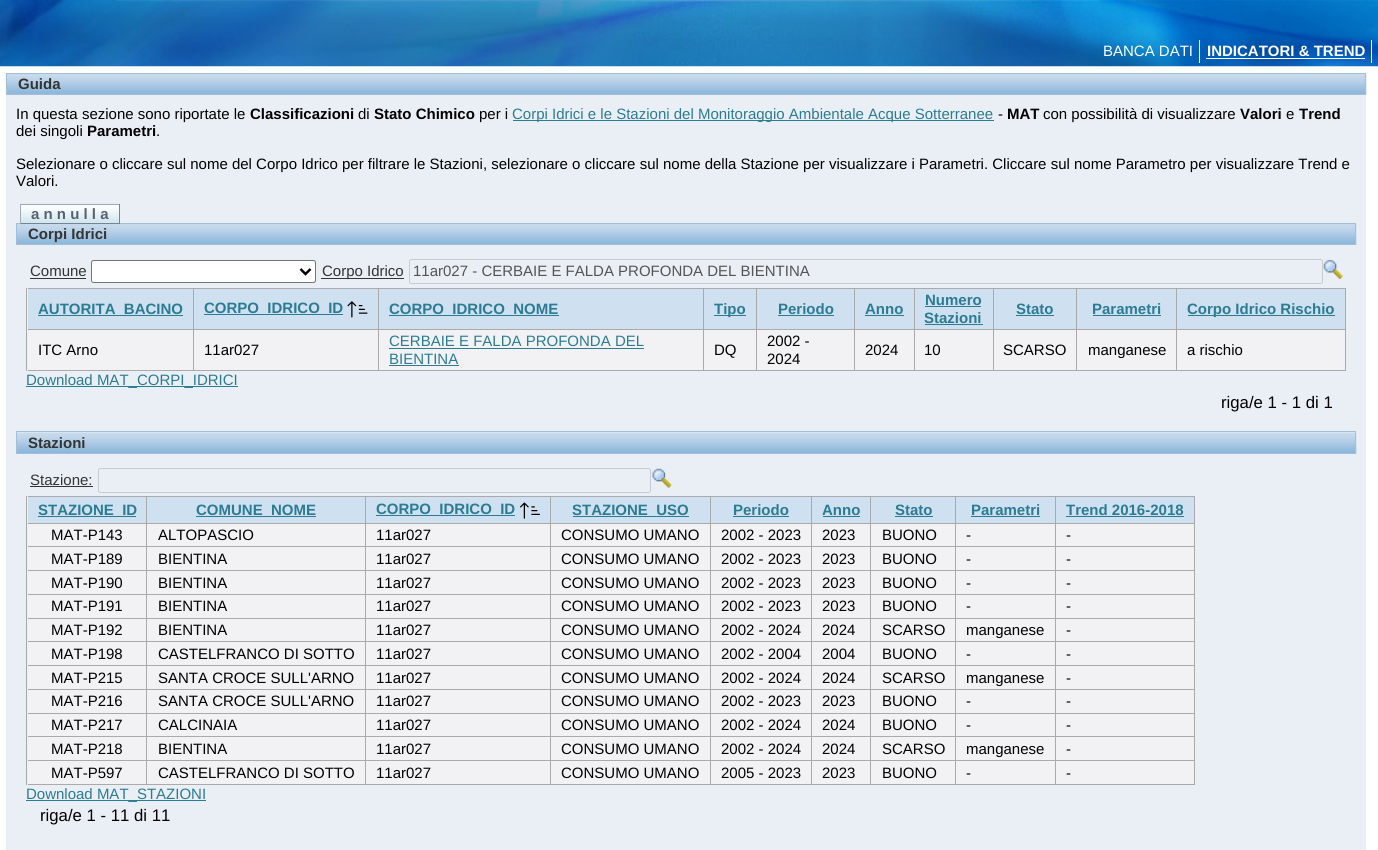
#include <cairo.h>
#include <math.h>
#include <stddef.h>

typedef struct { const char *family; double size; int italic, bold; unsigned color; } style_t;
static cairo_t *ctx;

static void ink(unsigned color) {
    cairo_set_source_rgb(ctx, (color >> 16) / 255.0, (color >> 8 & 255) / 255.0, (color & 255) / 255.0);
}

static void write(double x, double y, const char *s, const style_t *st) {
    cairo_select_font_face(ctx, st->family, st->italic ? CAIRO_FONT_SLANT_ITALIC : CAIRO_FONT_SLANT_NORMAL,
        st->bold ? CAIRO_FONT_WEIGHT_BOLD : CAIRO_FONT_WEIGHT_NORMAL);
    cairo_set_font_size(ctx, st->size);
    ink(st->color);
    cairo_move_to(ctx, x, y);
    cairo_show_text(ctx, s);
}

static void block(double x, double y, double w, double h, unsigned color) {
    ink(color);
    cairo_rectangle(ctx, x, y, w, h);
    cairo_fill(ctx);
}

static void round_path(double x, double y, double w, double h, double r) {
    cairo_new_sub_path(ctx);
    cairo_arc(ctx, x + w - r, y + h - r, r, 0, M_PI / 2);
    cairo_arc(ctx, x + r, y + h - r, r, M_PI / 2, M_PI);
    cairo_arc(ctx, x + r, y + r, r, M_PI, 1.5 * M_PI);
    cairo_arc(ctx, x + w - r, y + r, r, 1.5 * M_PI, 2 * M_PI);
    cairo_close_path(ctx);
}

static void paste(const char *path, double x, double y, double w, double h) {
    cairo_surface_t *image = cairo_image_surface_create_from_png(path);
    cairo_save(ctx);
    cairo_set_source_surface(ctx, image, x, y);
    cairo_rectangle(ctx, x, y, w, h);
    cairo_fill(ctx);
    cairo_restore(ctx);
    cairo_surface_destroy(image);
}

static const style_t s1 = {"Liberation Sans", 15, 0, 0, 0xffffff};
static const style_t s2 = {"Liberation Sans", 15, 0, 1, 0xffffff};
static const style_t s3 = {"Liberation Sans", 15, 0, 1, 0x343434};
static const style_t s4 = {"Liberation Sans", 15, 0, 0, 0x000000};
static const style_t s5 = {"Liberation Sans", 15, 0, 1, 0x000000};
static const style_t s6 = {"Liberation Sans", 15, 0, 0, 0x2b7c92};
static const style_t s7 = {"Liberation Sans", 15, 0, 1, 0x586073};
static const style_t s8 = {"Liberation Sans", 15, 0, 0, 0x343434};
static const style_t s9 = {"Liberation Sans", 15, 0, 0, 0x545454};
static const style_t s10 = {"Liberation Sans", 15, 0, 1, 0x2b7c92};
static const style_t s11 = {"Liberation Sans", 16.75, 0, 0, 0x000000};

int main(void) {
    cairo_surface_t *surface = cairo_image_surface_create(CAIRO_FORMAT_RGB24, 1378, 850);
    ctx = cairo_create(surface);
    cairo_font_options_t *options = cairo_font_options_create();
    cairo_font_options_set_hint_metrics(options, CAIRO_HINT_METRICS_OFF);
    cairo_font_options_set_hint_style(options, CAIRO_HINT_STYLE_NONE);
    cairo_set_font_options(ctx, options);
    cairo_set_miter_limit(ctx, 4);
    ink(0xffffff);
    cairo_paint(ctx);
    paste("pic1.png", 0, 0, 1378, 67);
    write(1103, 56, "BANCA DATI", &s1);
    block(1199, 40, 1, 23, 0xffffff);
    write(1207, 56, "INDICATORI & TREND", &s2);
    block(1371, 40, 1, 23, 0xffffff);
    block(1206, 58, 159, 1, 0xffffff);
    paste("pic2.png", 7, 73, 1360, 22);
    cairo_rectangle(ctx, 6.5, 73.5, 1359, 21);
    ink(0xa3bed8);
    cairo_set_line_width(ctx, 1);
    cairo_stroke(ctx);
    write(18, 89, "Guida", &s3);
    block(6, 95, 1360, 755, 0xeaeff5);
    write(16, 119, "In questa sezione sono riportate le", &s4);
    write(250, 119, "Classificazioni", &s5);
    write(358, 119, "di", &s4);
    write(374, 119, "Stato Chimico", &s5);
    write(479, 119, "per i", &s4);
    block(513, 120, 481, 1, 0x2b7c92);
    write(512, 119, "Corpi Idrici e le Stazioni del Monitoraggio Ambientale Acque Sotterranee", &s6);
    write(998, 119, "-", &s4);
    write(1007, 119, "MAT", &s5);
    write(1043, 119, "con possibilità di visualizzare", &s4);
    write(1240, 119, "Valori", &s5);
    write(1286, 119, "e", &s4);
    write(1299, 119, "Trend", &s5);
    write(16, 136, "dei singoli", &s4);
    write(87, 136, "Parametri", &s5);
    write(156, 136, ".", &s4);
    write(16, 169, "Selezionare o cliccare sul nome del Corpo Idrico per filtrare le Stazioni, selezionare o cliccare sul nome della Stazione per visualizzare i Parametri. Cliccare sul nome Parametro per visualizzare Trend e", &s4);
    write(16, 186, "Valori.", &s4);
    paste("pic3.png", 20, 203, 100, 20);
    write(31, 219, "a n n u l l a", &s7);
    block(20, 204, 100, 1, 0xa5a9b6);
    paste("pic4.png", 17, 223, 1340, 22);
    cairo_rectangle(ctx, 16.5, 223.5, 1339, 21);
    ink(0xa3bed8);
    cairo_stroke(ctx);
    block(119, 204, 1, 20, 0x7b8194);
    block(20, 223, 100, 1, 0x7b8194);
    block(20, 204, 1, 20, 0xa5a9b6);
    write(28, 239, "Corpi Idrici", &s3);
    write(30, 276, "Comune", &s8);
    block(30, 278, 56, 1, 0x343434);
    ink(0xffffff);
    round_path(91.5, 260.5, 224, 22, 2);
    cairo_fill_preserve(ctx);
    ink(0x767676);
    cairo_stroke(ctx);
    cairo_new_path(ctx);
    cairo_move_to(ctx, 300.5, 269);
    cairo_line_to(ctx, 305.5, 274);
    cairo_line_to(ctx, 310.5, 269);
    ink(0x000000);
    cairo_set_line_width(ctx, 2.5);
    cairo_stroke(ctx);
    block(321, 278, 83, 1, 0x343434);
    write(322, 276, "Corpo Idrico", &s8);
    round_path(409.5, 259.5, 913, 24, 2);
    ink(0xc9cbce);
    cairo_set_line_width(ctx, 1);
    cairo_stroke(ctx);
    write(413, 276, "11ar027 - CERBAIE E FALDA PROFONDA DEL BIENTINA", &s9);
    paste("pic5.png", 1323, 259, 20, 20);
    block(26, 288, 1, 83, 0xaaaaaa);
    block(28, 289, 165, 40, 0xcfe0f1);
    block(28, 288, 1318, 1, 0xaaaaaa);
    block(193, 288, 1, 83, 0xaaaaaa);
    block(28, 329, 166, 1, 0xaaaaaa);
    block(38, 315, 145, 1, 0x2b7c92);
    write(38, 314, "AUTORITA_BACINO", &s10);
    block(194, 289, 184, 40, 0xcfe0f1);
    block(378, 288, 1, 83, 0xaaaaaa);
    block(194, 329, 185, 1, 0xaaaaaa);
    block(204, 314, 139, 1, 0x2b7c92);
    write(204, 313, "CORPO_IDRICO_ID", &s10);
    paste("pic6.png", 347, 301, 21, 17);
    block(379, 289, 324, 40, 0xcfe0f1);
    block(703, 288, 1, 83, 0xaaaaaa);
    block(379, 329, 325, 1, 0xaaaaaa);
    block(389, 315, 170, 1, 0x2b7c92);
    write(389, 314, "CORPO_IDRICO_NOME", &s10);
    block(704, 289, 150, 40, 0xcfe0f1);
    block(756, 288, 1, 42, 0xaaaaaa);
    block(704, 329, 54, 1, 0xaaaaaa);
    block(714, 315, 32, 1, 0x2b7c92);
    write(714, 314, "Tipo", &s10);
    block(854, 288, 1, 83, 0xaaaaaa);
    block(758, 329, 97, 1, 0xaaaaaa);
    write(778, 314, "Periodo", &s10);
    block(778, 315, 56, 1, 0x2b7c92);
    block(855, 289, 59, 40, 0xcfe0f1);
    block(914, 288, 1, 83, 0xaaaaaa);
    block(855, 329, 60, 1, 0xaaaaaa);
    write(865, 314, "Anno", &s10);
    block(865, 315, 39, 1, 0x2b7c92);
    block(915, 289, 78, 40, 0xcfe0f1);
    block(993, 288, 1, 83, 0xaaaaaa);
    block(915, 329, 79, 1, 0xaaaaaa);
    write(925, 305, "Numero", &s10);
    block(925, 306, 56, 1, 0x2b7c92);
    write(924, 323, "Stazioni", &s10);
    block(925, 324, 58, 1, 0x2b7c92);
    block(994, 289, 351, 40, 0xcfe0f1);
    block(1076, 288, 1, 42, 0xaaaaaa);
    block(994, 329, 84, 1, 0xaaaaaa);
    write(1016, 314, "Stato", &s10);
    block(1016, 315, 38, 1, 0x2b7c92);
    block(1176, 288, 1, 42, 0xaaaaaa);
    block(1078, 329, 100, 1, 0xaaaaaa);
    write(1092, 314, "Parametri", &s10);
    block(1093, 315, 68, 1, 0x2b7c92);
    block(1345, 288, 1, 83, 0xaaaaaa);
    block(1178, 329, 168, 1, 0xaaaaaa);
    block(1188, 315, 147, 1, 0x2b7c92);
    write(1187, 314, "Corpo Idrico Rischio", &s10);
    block(28, 330, 165, 40, 0xf2f2f5);
    block(28, 370, 676, 1, 0xaaaaaa);
    write(38, 355, "ITC Arno", &s4);
    block(194, 330, 184, 40, 0xf2f2f5);
    write(204, 355, "11ar027", &s4);
    block(379, 330, 324, 40, 0xf2f2f5);
    write(389, 346, "CERBAIE E FALDA PROFONDA DEL", &s6);
    block(389, 348, 255, 1, 0x2b7c92);
    write(389, 364, "BIENTINA", &s6);
    block(389, 365, 70, 1, 0x2b7c92);
    block(704, 330, 150, 40, 0xf2f2f5);
    block(756, 330, 1, 41, 0xaaaaaa);
    block(704, 370, 290, 1, 0xaaaaaa);
    write(714, 355, "DQ", &s4);
    write(767, 346, "2002 -", &s4);
    write(767, 364, "2024", &s4);
    block(855, 330, 59, 40, 0xf2f2f5);
    write(865, 355, "2024", &s4);
    block(915, 330, 78, 40, 0xf2f2f5);
    write(924, 355, "10", &s4);
    block(994, 330, 351, 40, 0xf2f2f5);
    block(1076, 330, 1, 41, 0xaaaaaa);
    block(994, 370, 84, 1, 0xaaaaaa);
    write(1003, 355, "SCARSO", &s4);
    block(1176, 330, 1, 41, 0xaaaaaa);
    block(1078, 370, 268, 1, 0xaaaaaa);
    write(1088, 355, "manganese", &s4);
    write(1187, 355, "a rischio", &s4);
    block(26, 386, 212, 1, 0x2b7c92);
    write(26, 385, "Download MAT_CORPI_IDRICI", &s6);
    write(1221, 408, "riga/e 1 - 1 di 1", &s11);
    paste("pic7.png", 17, 432, 1340, 22);
    cairo_rectangle(ctx, 16.5, 431.5, 1339, 22);
    ink(0xa3bed8);
    cairo_stroke(ctx);
    write(28, 448, "Stazioni", &s3);
    write(30, 485, "Stazione:", &s8);
    block(30, 486, 63, 1, 0x343434);
    round_path(98.5, 468.5, 552, 24, 2);
    ink(0xc9cbce);
    cairo_stroke(ctx);
    paste("pic8.png", 652, 468, 20, 20);
    block(26, 496, 1, 289, 0xaaaaaa);
    block(28, 497, 337, 26, 0xcfe0f1);
    block(28, 496, 1167, 1, 0xaaaaaa);
    block(146, 496, 1, 28, 0xaaaaaa);
    block(28, 523, 120, 1, 0xaaaaaa);
    block(38, 516, 98, 1, 0x2b7c92);
    write(38, 515, "STAZIONE_ID", &s10);
    block(365, 496, 1, 289, 0xaaaaaa);
    block(148, 523, 218, 1, 0xaaaaaa);
    block(196, 516, 120, 1, 0x2b7c92);
    write(196, 515, "COMUNE_NOME", &s10);
    block(366, 497, 184, 26, 0xcfe0f1);
    block(550, 496, 1, 289, 0xaaaaaa);
    block(366, 523, 185, 1, 0xaaaaaa);
    block(376, 515, 139, 1, 0x2b7c92);
    write(376, 514, "CORPO_IDRICO_ID", &s10);
    paste("pic9.png", 520, 502, 20, 17);
    block(551, 497, 159, 26, 0xcfe0f1);
    block(710, 496, 1, 289, 0xaaaaaa);
    block(551, 523, 160, 1, 0xaaaaaa);
    block(573, 516, 116, 1, 0x2b7c92);
    write(572, 515, "STAZIONE_USO", &s10);
    block(711, 497, 159, 26, 0xcfe0f1);
    block(811, 496, 1, 28, 0xaaaaaa);
    block(711, 523, 102, 1, 0xaaaaaa);
    write(733, 515, "Periodo", &s10);
    block(733, 516, 56, 1, 0x2b7c92);
    block(870, 496, 1, 289, 0xaaaaaa);
    block(813, 523, 58, 1, 0xaaaaaa);
    write(822, 515, "Anno", &s10);
    block(823, 516, 37, 1, 0x2b7c92);
    block(871, 497, 84, 26, 0xcfe0f1);
    block(955, 496, 1, 289, 0xaaaaaa);
    block(871, 523, 85, 1, 0xaaaaaa);
    write(895, 515, "Stato", &s10);
    block(895, 516, 38, 1, 0x2b7c92);
    block(956, 497, 99, 26, 0xcfe0f1);
    block(1055, 496, 1, 289, 0xaaaaaa);
    block(956, 523, 100, 1, 0xaaaaaa);
    write(971, 515, "Parametri", &s10);
    block(971, 516, 69, 1, 0x2b7c92);
    block(1056, 497, 138, 26, 0xcfe0f1);
    block(1194, 496, 1, 289, 0xaaaaaa);
    block(1056, 523, 139, 1, 0xaaaaaa);
    write(1066, 515, "Trend 2016-2018", &s10);
    block(1066, 516, 118, 1, 0x2b7c92);
    block(28, 524, 337, 24, 0xf2f2f5);
    block(146, 524, 1, 24, 0xaaaaaa);
    block(28, 546, 338, 1, 0xaaaaaa);
    write(51, 540, "MAT-P143", &s4);
    write(158, 540, "ALTOPASCIO", &s4);
    block(366, 524, 184, 46, 0xf2f2f5);
    block(366, 546, 185, 1, 0xaaaaaa);
    write(376, 540, "11ar027", &s4);
    block(551, 524, 159, 46, 0xf2f2f5);
    block(551, 546, 160, 1, 0xaaaaaa);
    write(561, 540, "CONSUMO UMANO", &s4);
    block(711, 524, 159, 24, 0xf2f2f5);
    block(811, 524, 1, 24, 0xaaaaaa);
    block(711, 546, 160, 1, 0xaaaaaa);
    write(721, 540, "2002 - 2023", &s4);
    write(822, 540, "2023", &s4);
    block(871, 524, 84, 46, 0xf2f2f5);
    block(871, 546, 85, 1, 0xaaaaaa);
    write(882, 540, "BUONO", &s4);
    block(956, 524, 99, 46, 0xf2f2f5);
    block(956, 546, 100, 1, 0xaaaaaa);
    write(966, 540, "-", &s4);
    block(1056, 524, 138, 46, 0xf2f2f5);
    block(1056, 546, 139, 1, 0xaaaaaa);
    write(1066, 540, "-", &s4);
    block(28, 548, 337, 22, 0xf2f2f5);
    block(146, 548, 1, 23, 0xaaaaaa);
    block(28, 570, 683, 1, 0xaaaaaa);
    write(51, 564, "MAT-P189", &s4);
    write(158, 564, "BIENTINA", &s4);
    write(376, 564, "11ar027", &s4);
    write(561, 564, "CONSUMO UMANO", &s4);
    block(711, 548, 159, 22, 0xf2f2f5);
    block(811, 548, 1, 23, 0xaaaaaa);
    block(711, 570, 484, 1, 0xaaaaaa);
    write(721, 564, "2002 - 2023", &s4);
    write(822, 564, "2023", &s4);
    write(882, 564, "BUONO", &s4);
    write(966, 564, "-", &s4);
    write(1066, 564, "-", &s4);
    block(28, 571, 337, 23, 0xf2f2f5);
    block(146, 571, 1, 24, 0xaaaaaa);
    block(28, 594, 683, 1, 0xaaaaaa);
    write(51, 588, "MAT-P190", &s4);
    write(158, 588, "BIENTINA", &s4);
    block(366, 571, 184, 23, 0xf2f2f5);
    write(376, 588, "11ar027", &s4);
    block(551, 571, 159, 23, 0xf2f2f5);
    write(561, 588, "CONSUMO UMANO", &s4);
    block(711, 571, 159, 23, 0xf2f2f5);
    block(811, 571, 1, 24, 0xaaaaaa);
    block(711, 594, 484, 1, 0xaaaaaa);
    write(721, 588, "2002 - 2023", &s4);
    write(822, 588, "2023", &s4);
    block(871, 571, 84, 23, 0xf2f2f5);
    write(882, 588, "BUONO", &s4);
    block(956, 571, 99, 23, 0xf2f2f5);
    write(966, 588, "-", &s4);
    block(1056, 571, 138, 23, 0xf2f2f5);
    write(1066, 588, "-", &s4);
    block(28, 595, 337, 23, 0xf2f2f5);
    block(146, 595, 1, 24, 0xaaaaaa);
    block(28, 618, 683, 1, 0xaaaaaa);
    write(51, 611, "MAT-P191", &s4);
    write(158, 611, "BIENTINA", &s4);
    block(366, 595, 184, 23, 0xf2f2f5);
    write(376, 611, "11ar027", &s4);
    block(551, 595, 159, 23, 0xf2f2f5);
    write(561, 611, "CONSUMO UMANO", &s4);
    block(711, 595, 159, 23, 0xf2f2f5);
    block(811, 595, 1, 24, 0xaaaaaa);
    block(711, 618, 484, 1, 0xaaaaaa);
    write(721, 611, "2002 - 2023", &s4);
    write(822, 611, "2023", &s4);
    block(871, 595, 84, 23, 0xf2f2f5);
    write(882, 611, "BUONO", &s4);
    block(956, 595, 99, 23, 0xf2f2f5);
    write(966, 611, "-", &s4);
    block(1056, 595, 138, 23, 0xf2f2f5);
    write(1066, 611, "-", &s4);
    block(28, 619, 337, 24, 0xf2f2f5);
    block(146, 619, 1, 24, 0xaaaaaa);
    block(28, 641, 338, 1, 0xaaaaaa);
    write(51, 635, "MAT-P192", &s4);
    write(158, 635, "BIENTINA", &s4);
    block(366, 619, 184, 46, 0xf2f2f5);
    block(366, 641, 185, 1, 0xaaaaaa);
    write(376, 635, "11ar027", &s4);
    block(551, 619, 159, 46, 0xf2f2f5);
    block(551, 641, 160, 1, 0xaaaaaa);
    write(561, 635, "CONSUMO UMANO", &s4);
    block(711, 619, 159, 24, 0xf2f2f5);
    block(811, 619, 1, 24, 0xaaaaaa);
    block(711, 641, 160, 1, 0xaaaaaa);
    write(721, 635, "2002 - 2024", &s4);
    write(822, 635, "2024", &s4);
    block(871, 619, 84, 46, 0xf2f2f5);
    block(871, 641, 85, 1, 0xaaaaaa);
    write(882, 635, "SCARSO", &s4);
    block(956, 619, 99, 46, 0xf2f2f5);
    block(956, 641, 100, 1, 0xaaaaaa);
    write(966, 635, "manganese", &s4);
    block(1056, 619, 138, 46, 0xf2f2f5);
    block(1056, 641, 139, 1, 0xaaaaaa);
    write(1066, 635, "-", &s4);
    block(28, 643, 337, 22, 0xf2f2f5);
    block(146, 643, 1, 23, 0xaaaaaa);
    block(28, 665, 683, 1, 0xaaaaaa);
    write(51, 659, "MAT-P198", &s4);
    write(158, 659, "CASTELFRANCO DI SOTTO", &s4);
    write(376, 659, "11ar027", &s4);
    write(561, 659, "CONSUMO UMANO", &s4);
    block(711, 643, 159, 22, 0xf2f2f5);
    block(811, 643, 1, 23, 0xaaaaaa);
    block(711, 665, 484, 1, 0xaaaaaa);
    write(721, 659, "2002 - 2004", &s4);
    write(822, 659, "2004", &s4);
    write(882, 659, "BUONO", &s4);
    write(966, 659, "-", &s4);
    write(1066, 659, "-", &s4);
    block(28, 666, 337, 23, 0xf2f2f5);
    block(146, 666, 1, 24, 0xaaaaaa);
    block(28, 689, 683, 1, 0xaaaaaa);
    write(51, 683, "MAT-P215", &s4);
    write(158, 683, "SANTA CROCE SULL'ARNO", &s4);
    block(366, 666, 184, 23, 0xf2f2f5);
    write(376, 683, "11ar027", &s4);
    block(551, 666, 159, 23, 0xf2f2f5);
    write(561, 683, "CONSUMO UMANO", &s4);
    block(711, 666, 159, 23, 0xf2f2f5);
    block(811, 666, 1, 24, 0xaaaaaa);
    block(711, 689, 484, 1, 0xaaaaaa);
    write(721, 683, "2002 - 2024", &s4);
    write(822, 683, "2024", &s4);
    block(871, 666, 84, 23, 0xf2f2f5);
    write(882, 683, "SCARSO", &s4);
    block(956, 666, 99, 23, 0xf2f2f5);
    write(966, 683, "manganese", &s4);
    block(1056, 666, 138, 23, 0xf2f2f5);
    write(1066, 683, "-", &s4);
    block(28, 690, 337, 23, 0xf2f2f5);
    block(146, 690, 1, 24, 0xaaaaaa);
    block(28, 713, 683, 1, 0xaaaaaa);
    write(51, 706, "MAT-P216", &s4);
    write(158, 706, "SANTA CROCE SULL'ARNO", &s4);
    block(366, 690, 184, 23, 0xf2f2f5);
    write(376, 706, "11ar027", &s4);
    block(551, 690, 159, 23, 0xf2f2f5);
    write(561, 706, "CONSUMO UMANO", &s4);
    block(711, 690, 159, 23, 0xf2f2f5);
    block(811, 690, 1, 24, 0xaaaaaa);
    block(711, 713, 484, 1, 0xaaaaaa);
    write(721, 706, "2002 - 2023", &s4);
    write(822, 706, "2023", &s4);
    block(871, 690, 84, 23, 0xf2f2f5);
    write(882, 706, "BUONO", &s4);
    block(956, 690, 99, 23, 0xf2f2f5);
    write(966, 706, "-", &s4);
    block(1056, 690, 138, 23, 0xf2f2f5);
    write(1066, 706, "-", &s4);
    block(28, 714, 337, 24, 0xf2f2f5);
    block(146, 714, 1, 24, 0xaaaaaa);
    block(28, 736, 338, 1, 0xaaaaaa);
    write(51, 730, "MAT-P217", &s4);
    write(158, 730, "CALCINAIA", &s4);
    block(366, 714, 184, 46, 0xf2f2f5);
    block(366, 736, 185, 1, 0xaaaaaa);
    write(376, 730, "11ar027", &s4);
    block(551, 714, 159, 46, 0xf2f2f5);
    block(551, 736, 160, 1, 0xaaaaaa);
    write(561, 730, "CONSUMO UMANO", &s4);
    block(711, 714, 159, 24, 0xf2f2f5);
    block(811, 714, 1, 24, 0xaaaaaa);
    block(711, 736, 160, 1, 0xaaaaaa);
    write(721, 730, "2002 - 2024", &s4);
    write(822, 730, "2024", &s4);
    block(871, 714, 84, 46, 0xf2f2f5);
    block(871, 736, 85, 1, 0xaaaaaa);
    write(882, 730, "BUONO", &s4);
    block(956, 714, 99, 46, 0xf2f2f5);
    block(956, 736, 100, 1, 0xaaaaaa);
    write(966, 730, "-", &s4);
    block(1056, 714, 138, 46, 0xf2f2f5);
    block(1056, 736, 139, 1, 0xaaaaaa);
    write(1066, 730, "-", &s4);
    block(28, 738, 337, 22, 0xf2f2f5);
    block(146, 738, 1, 23, 0xaaaaaa);
    block(28, 760, 683, 1, 0xaaaaaa);
    write(51, 754, "MAT-P218", &s4);
    write(158, 754, "BIENTINA", &s4);
    write(376, 754, "11ar027", &s4);
    write(561, 754, "CONSUMO UMANO", &s4);
    block(711, 738, 159, 22, 0xf2f2f5);
    block(811, 738, 1, 23, 0xaaaaaa);
    block(711, 760, 484, 1, 0xaaaaaa);
    write(721, 754, "2002 - 2024", &s4);
    write(822, 754, "2024", &s4);
    write(882, 754, "SCARSO", &s4);
    write(966, 754, "manganese", &s4);
    write(1066, 754, "-", &s4);
    block(28, 761, 337, 23, 0xf2f2f5);
    block(146, 761, 1, 24, 0xaaaaaa);
    block(28, 784, 683, 1, 0xaaaaaa);
    write(51, 778, "MAT-P597", &s4);
    write(158, 778, "CASTELFRANCO DI SOTTO", &s4);
    block(366, 761, 184, 23, 0xf2f2f5);
    write(376, 778, "11ar027", &s4);
    block(551, 761, 159, 23, 0xf2f2f5);
    write(561, 778, "CONSUMO UMANO", &s4);
    block(711, 761, 159, 23, 0xf2f2f5);
    block(811, 761, 1, 24, 0xaaaaaa);
    block(711, 784, 484, 1, 0xaaaaaa);
    write(721, 778, "2005 - 2023", &s4);
    write(822, 778, "2023", &s4);
    block(871, 761, 84, 23, 0xf2f2f5);
    write(882, 778, "BUONO", &s4);
    block(956, 761, 99, 23, 0xf2f2f5);
    write(966, 778, "-", &s4);
    block(1056, 761, 138, 23, 0xf2f2f5);
    write(1066, 778, "-", &s4);
    block(26, 800, 180, 1, 0x2b7c92);
    write(26, 799, "Download MAT_STAZIONI", &s6);
    write(40, 821, "riga/e 1 - 11 di 11", &s11);
    cairo_surface_write_to_png(surface, "screenshot.png");
    cairo_font_options_destroy(options);
    cairo_destroy(ctx);
    cairo_surface_destroy(surface);
    return 0;
}
